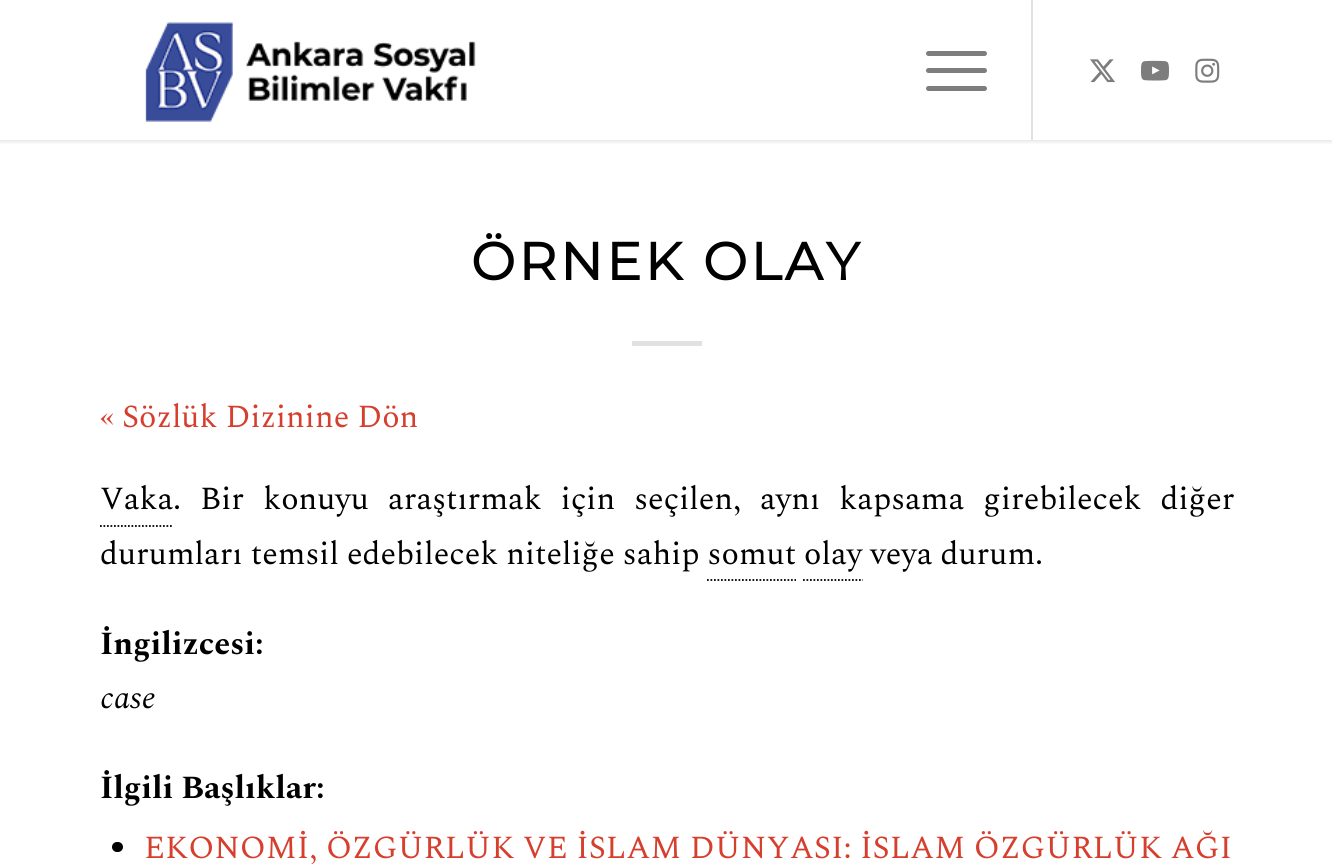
#include <cairo.h>
#include <math.h>
#include <stddef.h>

typedef struct { const char *family; double size; int italic, bold; unsigned color; } style_t;
static cairo_t *ctx;

static void ink(unsigned color) {
    cairo_set_source_rgb(ctx, (color >> 16) / 255.0, (color >> 8 & 255) / 255.0, (color & 255) / 255.0);
}

static void write(double x, double y, const char *s, const style_t *st) {
    cairo_select_font_face(ctx, st->family, st->italic ? CAIRO_FONT_SLANT_ITALIC : CAIRO_FONT_SLANT_NORMAL,
        st->bold ? CAIRO_FONT_WEIGHT_BOLD : CAIRO_FONT_WEIGHT_NORMAL);
    cairo_set_font_size(ctx, st->size);
    ink(st->color);
    cairo_move_to(ctx, x, y);
    cairo_show_text(ctx, s);
}

static void write_spaced(double x, double y, const char *s, double letter, double word) {
    cairo_move_to(ctx, x, y);
    while (*s) {
        char ch[5] = {0};
        int n = 0;
        do ch[n++] = *s++; while ((*s & 0xC0) == 0x80);
        cairo_show_text(ctx, ch);
        cairo_rel_move_to(ctx, letter + word * (*ch == ' '), 0);
    }
}

static void block(double x, double y, double w, double h, unsigned color) {
    ink(color);
    cairo_rectangle(ctx, x, y, w, h);
    cairo_fill(ctx);
}

static void round_path(double x, double y, double w, double h, double r) {
    cairo_new_sub_path(ctx);
    cairo_arc(ctx, x + w - r, y + h - r, r, 0, M_PI / 2);
    cairo_arc(ctx, x + r, y + h - r, r, M_PI / 2, M_PI);
    cairo_arc(ctx, x + r, y + r, r, M_PI, 1.5 * M_PI);
    cairo_arc(ctx, x + w - r, y + r, r, 1.5 * M_PI, 2 * M_PI);
    cairo_close_path(ctx);
}

static void blur_box(double x, double y, double w, double h, double r, double blur, double alpha) {
    cairo_push_group_with_content(ctx, CAIRO_CONTENT_ALPHA);
    cairo_set_operator(ctx, CAIRO_OPERATOR_SOURCE);
    for (int i = 15; i >= -15 && fmin(w, h) + blur * i / 3 > 0; i -= 2) {
        double e = blur * i / 6;
        cairo_set_source_rgba(ctx, 0, 0, 0, alpha * erfc((i - 1) / 8.5) / 2);
        round_path(x - e, y - e, w + 2 * e, h + 2 * e, fmax(0, fmin(r + e + blur * .6, fmin(w, h) / 2 + e)));
        cairo_fill(ctx);
    }
    cairo_pattern_t *soft = cairo_pop_group(ctx);
    cairo_mask(ctx, soft);
    cairo_pattern_destroy(soft);
}

static void paste(const char *path, double x, double y, double w, double h) {
    cairo_surface_t *image = cairo_image_surface_create_from_png(path);
    cairo_save(ctx);
    cairo_set_source_surface(ctx, image, x, y);
    cairo_rectangle(ctx, x, y, w, h);
    cairo_fill(ctx);
    cairo_restore(ctx);
    cairo_surface_destroy(image);
}

static const style_t s1 = {"Spectral", 32.2, 0, 0, 0xd63e2d};
static const style_t s2 = {"Spectral", 32.2, 0, 0, 0x000000};
static const style_t s3 = {"Spectral", 32.2, 0, 1, 0x000000};
static const style_t s4 = {"Spectral", 32.2, 1, 0, 0x000000};

int main(void) {
    cairo_surface_t *surface = cairo_image_surface_create(CAIRO_FORMAT_RGB24, 1332, 864);
    ctx = cairo_create(surface);
    cairo_font_options_t *options = cairo_font_options_create();
    cairo_font_options_set_hint_metrics(options, CAIRO_HINT_METRICS_OFF);
    cairo_font_options_set_hint_style(options, CAIRO_HINT_STYLE_NONE);
    cairo_set_font_options(ctx, options);
    cairo_set_miter_limit(ctx, 4);
    ink(0xffffff);
    cairo_paint(ctx);
    cairo_save(ctx);
    cairo_rectangle(ctx, 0, 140, 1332, 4);
    cairo_clip(ctx);
    ink(0x000000);
    blur_box(-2, -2, 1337, 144, 0, 2, 0.1);
    cairo_restore(ctx);
    paste("pic1.png", 145, 22, 331, 100);
    block(1031, 0, 2, 140, 0xe1e1e1);
    ink(0x7d7d7d);
    round_path(926, 68, 61, 5, 2.5);
    cairo_fill(ctx);
    round_path(926, 51, 61, 5, 2.5);
    cairo_fill(ctx);
    round_path(926, 86, 61, 5, 2.5);
    cairo_fill(ctx);
    paste("pic2.png", 1090, 59, 25, 24);
    paste("pic3.png", 1141, 60, 28, 21);
    paste("pic4.png", 1195, 58, 25, 25);
    cairo_select_font_face(ctx, "Montserrat", CAIRO_FONT_SLANT_NORMAL, CAIRO_FONT_WEIGHT_BOLD);
    cairo_set_font_size(ctx, 52.5);
    ink(0x000000);
    write_spaced(471, 280, "ÖRNEK OLAY", 3.5, 0);
    block(632, 341, 70, 5, 0xe1e1e1);
    write(100, 427, "« Sözlük Dizinine Dön", &s1);
    write(100, 509, "Vaka", &s2);
    cairo_new_path(ctx);
    cairo_move_to(ctx, 100, 526);
    cairo_line_to(ctx, 173, 526);
    cairo_set_line_width(ctx, 1.8);
    cairo_set_dash(ctx, (double[]){1.75, 1.75}, 2, 0);
    cairo_stroke(ctx);
    write_spaced(173, 509, ". Bir konuyu araştırmak için seçilen, aynı kapsama girebilecek diğer", 0, 11);
    write(100, 564, "durumları temsil edebilecek niteliğe sahip somut olay veya durum.", &s2);
    cairo_new_path(ctx);
    cairo_move_to(ctx, 707, 580);
    cairo_line_to(ctx, 796, 580);
    cairo_stroke(ctx);
    cairo_new_path(ctx);
    cairo_move_to(ctx, 803, 580);
    cairo_line_to(ctx, 863, 580);
    cairo_stroke(ctx);
    write(100, 654, "İngilizcesi:", &s3);
    write(100, 708, "case", &s4);
    write(100, 798, "İlgili Başlıklar:", &s3);
    round_path(112, 842, 11, 10, 5);
    cairo_fill(ctx);
    cairo_select_font_face(ctx, "Spectral", CAIRO_FONT_SLANT_NORMAL, CAIRO_FONT_WEIGHT_NORMAL);
    ink(0xd63e2d);
    write_spaced(144, 858, "EKONOMİ, ÖZGÜRLÜK VE İSLAM DÜNYASI: İSLAM ÖZGÜRLÜK AĞI", 0, 0.5);
    cairo_surface_write_to_png(surface, "screenshot.png");
    cairo_font_options_destroy(options);
    cairo_destroy(ctx);
    cairo_surface_destroy(surface);
    return 0;
}
